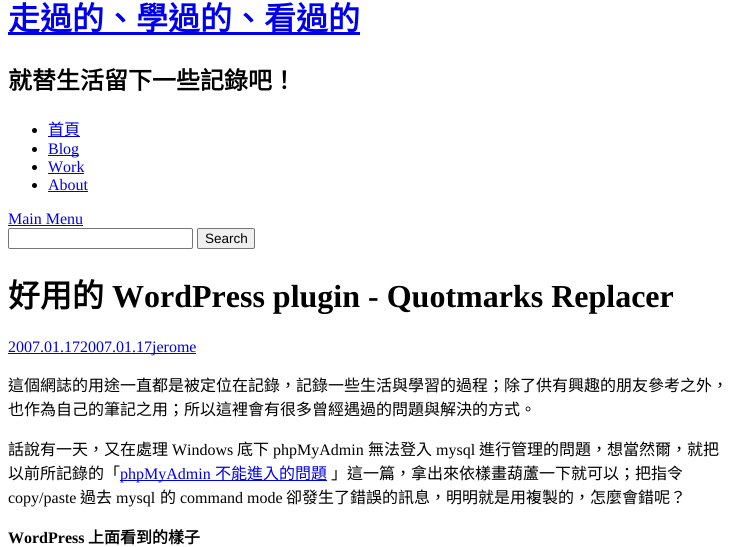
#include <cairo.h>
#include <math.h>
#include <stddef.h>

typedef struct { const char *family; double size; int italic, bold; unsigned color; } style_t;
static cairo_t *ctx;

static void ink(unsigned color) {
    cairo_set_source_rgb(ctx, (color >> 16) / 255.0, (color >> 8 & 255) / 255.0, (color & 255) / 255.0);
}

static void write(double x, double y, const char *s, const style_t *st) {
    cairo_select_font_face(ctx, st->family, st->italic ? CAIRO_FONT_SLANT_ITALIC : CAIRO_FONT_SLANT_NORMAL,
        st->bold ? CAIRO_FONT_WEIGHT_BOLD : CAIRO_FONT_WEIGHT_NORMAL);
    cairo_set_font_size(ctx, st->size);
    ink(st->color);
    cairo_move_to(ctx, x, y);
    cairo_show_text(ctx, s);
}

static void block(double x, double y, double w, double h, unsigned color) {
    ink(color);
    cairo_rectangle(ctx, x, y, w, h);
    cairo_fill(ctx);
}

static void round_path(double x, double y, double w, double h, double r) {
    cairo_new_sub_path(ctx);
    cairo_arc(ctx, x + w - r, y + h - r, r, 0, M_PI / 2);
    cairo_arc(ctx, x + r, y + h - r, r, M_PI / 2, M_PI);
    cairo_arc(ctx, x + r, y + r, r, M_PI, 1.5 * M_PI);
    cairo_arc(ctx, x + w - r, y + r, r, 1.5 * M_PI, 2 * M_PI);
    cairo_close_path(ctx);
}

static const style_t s1 = {"Noto Sans CJK TC", 32, 0, 1, 0x0000ee};
static const style_t s2 = {"Noto Sans CJK TC", 24, 0, 1, 0x000000};
static const style_t s3 = {"Noto Sans CJK TC", 16, 0, 0, 0x0000ee};
static const style_t s4 = {"Liberation Serif", 16, 0, 0, 0x0000ee};
static const style_t s5 = {"Liberation Sans", 13.5, 0, 0, 0x000000};
static const style_t s6 = {"Noto Sans CJK TC", 32, 0, 1, 0x000000};
static const style_t s7 = {"Liberation Serif", 32, 0, 1, 0x000000};
static const style_t s8 = {"Noto Sans CJK TC", 16, 0, 0, 0x000000};
static const style_t s9 = {"Liberation Serif", 16, 0, 0, 0x000000};
static const style_t s10 = {"Liberation Serif", 16, 0, 1, 0x000000};
static const style_t s11 = {"Noto Sans CJK TC", 16, 0, 1, 0x000000};

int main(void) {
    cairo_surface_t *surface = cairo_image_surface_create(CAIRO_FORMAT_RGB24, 739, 547);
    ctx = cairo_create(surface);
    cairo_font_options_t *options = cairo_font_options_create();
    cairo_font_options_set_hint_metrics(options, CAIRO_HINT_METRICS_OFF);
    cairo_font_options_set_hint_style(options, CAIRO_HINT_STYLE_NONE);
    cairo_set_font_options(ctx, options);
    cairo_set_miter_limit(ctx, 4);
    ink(0xffffff);
    cairo_paint(ctx);
    block(8, 32, 352, 3, 0x0000ee);
    write(8, 30, "走過的、學過的、看過的", &s1);
    write(8, 89, "就替生活留下一些記錄吧！", &s2);
    cairo_new_path(ctx);
    cairo_arc(ctx, 34.5, 130.5, 2.5, 0, 2 * M_PI);
    cairo_fill(ctx);
    block(48, 136, 32, 1, 0x0000ee);
    write(48, 135, "首頁", &s3);
    ink(0x000000);
    cairo_new_path(ctx);
    cairo_arc(ctx, 34.5, 149.5, 2.5, 0, 2 * M_PI);
    cairo_fill(ctx);
    block(48, 155, 31, 1, 0x0000ee);
    write(48, 154, "Blog", &s4);
    ink(0x000000);
    cairo_new_path(ctx);
    cairo_arc(ctx, 34.5, 167.5, 2.5, 0, 2 * M_PI);
    cairo_fill(ctx);
    write(48, 172, "Work", &s4);
    block(48, 173, 36, 1, 0x0000ee);
    ink(0x000000);
    cairo_new_path(ctx);
    cairo_arc(ctx, 34.5, 185.5, 2.5, 0, 2 * M_PI);
    cairo_fill(ctx);
    write(48, 190, "About", &s4);
    block(48, 191, 40, 1, 0x0000ee);
    write(8, 224, "Main Menu", &s4);
    block(8, 225, 75, 1, 0x0000ee);
    round_path(8.5, 228.5, 184, 20, 1.5);
    ink(0x767676);
    cairo_set_line_width(ctx, 1);
    cairo_stroke(ctx);
    ink(0xefefef);
    round_path(197.5, 228.5, 57, 20, 1.5);
    cairo_fill_preserve(ctx);
    ink(0x767676);
    cairo_stroke(ctx);
    write(205, 243, "Search", &s5);
    write(8, 307, "好用的", &s6);
    write(112, 307, "WordPress plugin - Quotmarks Replacer", &s7);
    block(8, 353, 188, 1, 0x0000ee);
    write(8, 352, "2007.01.172007.01.17jerome", &s4);
    write(8, 391, "這個網誌的用途一直都是被定位在記錄，記錄一些生活與學習的過程；除了供有興趣的朋友參考之外，", &s8);
    write(8, 415, "也作為自己的筆記之用；所以這裡會有很多曾經遇過的問題與解決的方式。", &s8);
    write(8, 455, "話說有一天，又在處理", &s8);
    write(172, 455, "Windows", &s9);
    write(237, 455, "底下", &s8);
    write(273, 455, "phpMyAdmin", &s9);
    write(368, 455, "無法登入", &s8);
    write(436, 455, "mysql", &s9);
    write(479, 455, "進行管理的問題，想當然爾，就把", &s8);
    write(8, 479, "以前所記錄的「", &s8);
    block(120, 480, 207, 1, 0x0000ee);
    write(120, 479, "phpMyAdmin", &s4);
    write(215, 479, "不能進入的問題", &s3);
    write(331, 479, "」這一篇，拿出來依樣畫葫蘆一下就可以；把指令", &s8);
    write(8, 503, "copy/paste", &s9);
    write(80, 503, "過去", &s8);
    write(116, 503, "mysql", &s9);
    write(160, 503, "的", &s8);
    write(180, 503, "command mode", &s9);
    write(286, 503, "卻發生了錯誤的訊息，明明就是用複製的，怎麼會錯呢？", &s8);
    write(8, 543, "WordPress", &s10);
    write(88, 543, "上面看到的樣子", &s11);
    cairo_surface_write_to_png(surface, "screenshot.png");
    cairo_font_options_destroy(options);
    cairo_destroy(ctx);
    cairo_surface_destroy(surface);
    return 0;
}
